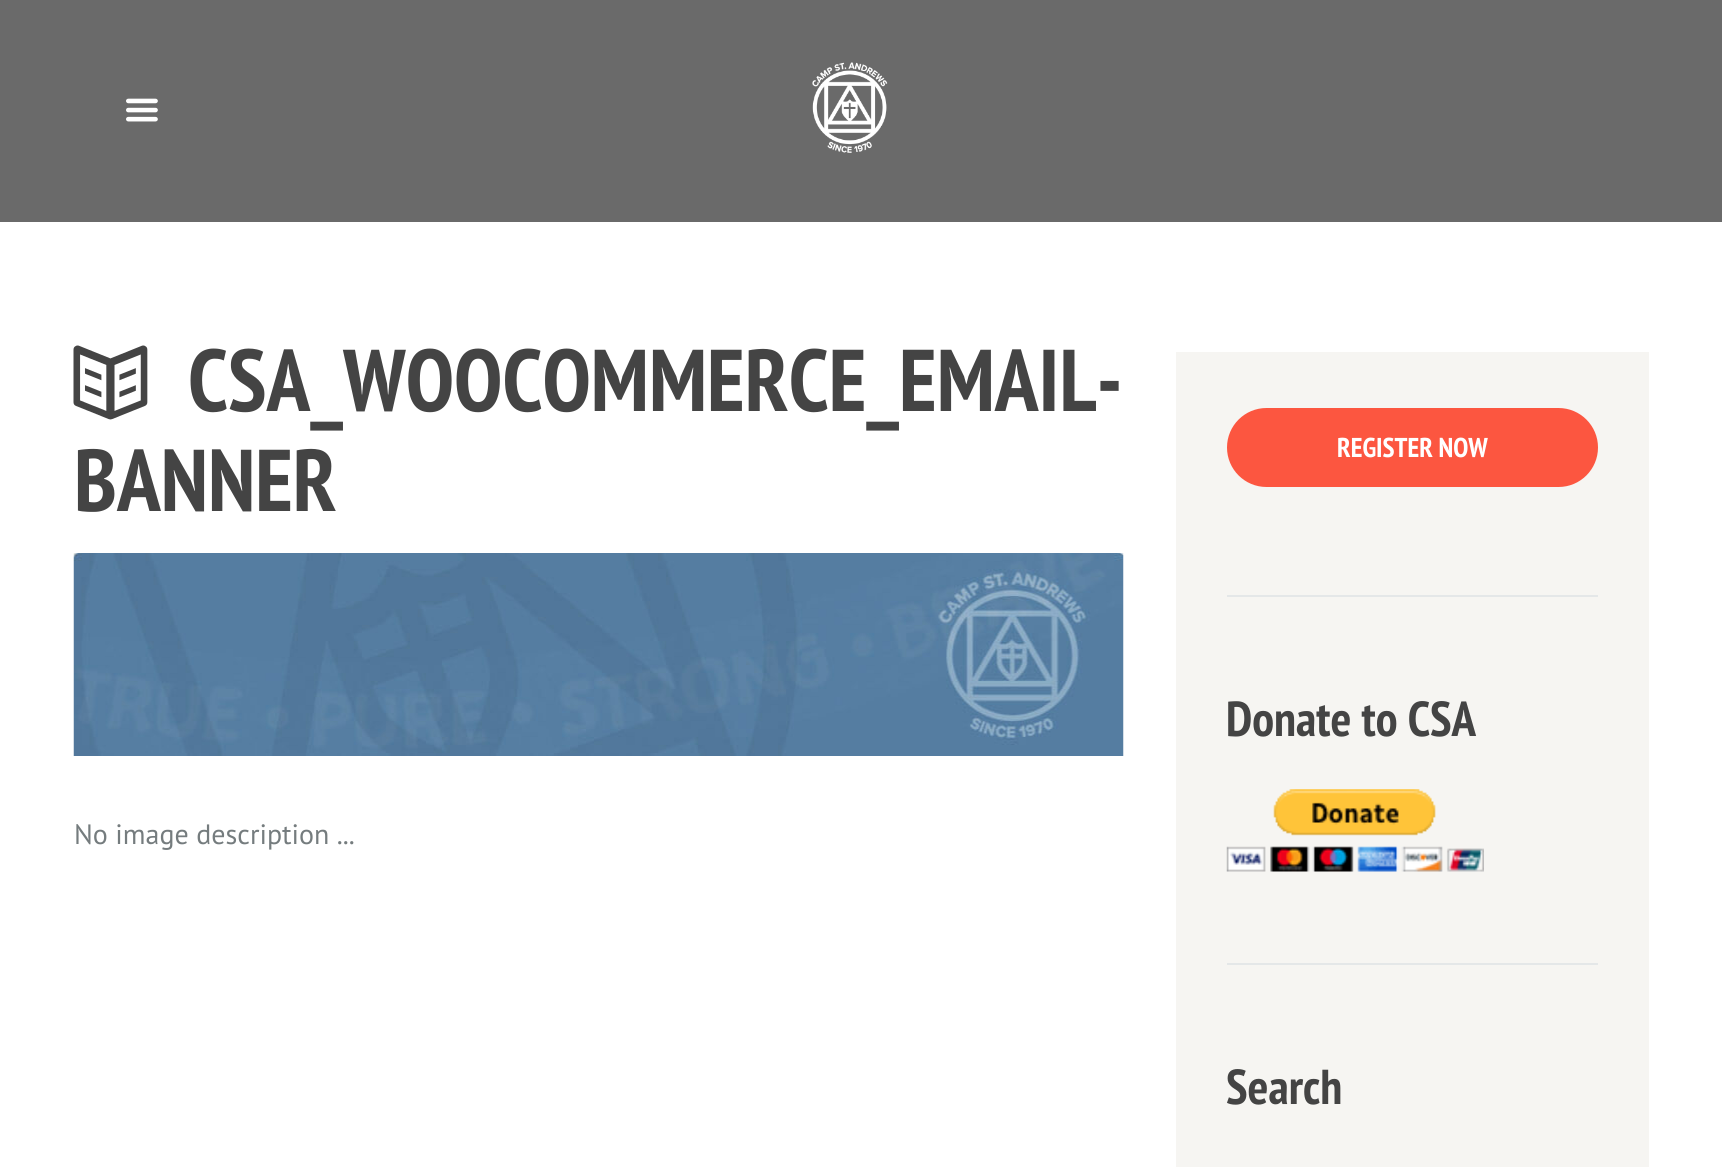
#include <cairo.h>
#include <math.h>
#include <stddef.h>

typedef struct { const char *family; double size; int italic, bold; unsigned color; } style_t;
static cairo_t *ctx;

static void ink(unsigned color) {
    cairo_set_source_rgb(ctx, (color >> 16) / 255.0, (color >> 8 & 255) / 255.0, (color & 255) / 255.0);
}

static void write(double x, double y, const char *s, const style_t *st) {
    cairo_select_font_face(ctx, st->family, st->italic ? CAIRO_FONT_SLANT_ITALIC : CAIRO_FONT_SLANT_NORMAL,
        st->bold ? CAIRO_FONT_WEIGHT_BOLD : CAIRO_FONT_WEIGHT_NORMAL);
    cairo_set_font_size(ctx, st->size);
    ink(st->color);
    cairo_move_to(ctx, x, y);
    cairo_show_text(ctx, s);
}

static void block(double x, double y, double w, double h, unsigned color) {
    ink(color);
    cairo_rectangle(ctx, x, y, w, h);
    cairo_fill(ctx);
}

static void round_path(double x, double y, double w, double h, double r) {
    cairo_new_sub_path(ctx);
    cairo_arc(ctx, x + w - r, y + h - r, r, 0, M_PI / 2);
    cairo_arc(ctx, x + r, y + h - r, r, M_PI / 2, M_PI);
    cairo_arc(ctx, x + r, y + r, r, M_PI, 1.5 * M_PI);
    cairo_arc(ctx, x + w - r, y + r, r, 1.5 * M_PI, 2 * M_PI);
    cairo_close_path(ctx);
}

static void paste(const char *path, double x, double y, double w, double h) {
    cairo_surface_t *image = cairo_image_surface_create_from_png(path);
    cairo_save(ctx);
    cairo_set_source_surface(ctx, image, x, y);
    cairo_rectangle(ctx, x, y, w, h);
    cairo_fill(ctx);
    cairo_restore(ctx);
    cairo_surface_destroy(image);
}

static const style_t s1 = {"PT Sans Narrow", 87.5, 0, 1, 0x444444};
static const style_t s2 = {"PT Sans", 28, 0, 0, 0x757c7e};
static const style_t s3 = {"PT Sans Narrow", 27.25, 0, 1, 0xffffff};
static const style_t s4 = {"PT Sans Narrow", 49, 0, 1, 0x444444};

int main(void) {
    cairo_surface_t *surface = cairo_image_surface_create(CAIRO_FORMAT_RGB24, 1722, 1167);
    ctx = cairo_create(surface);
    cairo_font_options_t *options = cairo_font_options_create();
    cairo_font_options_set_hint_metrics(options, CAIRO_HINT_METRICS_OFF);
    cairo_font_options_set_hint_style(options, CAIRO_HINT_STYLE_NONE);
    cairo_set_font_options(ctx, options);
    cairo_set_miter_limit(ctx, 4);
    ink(0xffffff);
    cairo_paint(ctx);
    block(0, 0, 1722, 222, 0x6a6a6a);
    paste("pic1.png", 126, 98, 32, 24);
    paste("pic2.png", 812, 62, 76, 91);
    paste("pic3.png", 73, 345, 75, 75);
    write(188, 411, "CSA_WOOCOMMERCE_EMAIL-", &s1);
    write(74, 511, "BANNER", &s1);
    paste("pic4.png", 73, 553, 1051, 203);
    write(74, 844, "No image description ...", &s2);
    block(1176, 352, 473, 815, 0xf6f5f2);
    ink(0xfc5640);
    round_path(1229, 410, 367, 75, 37.5);
    cairo_fill_preserve(ctx);
    cairo_set_line_width(ctx, 4);
    cairo_stroke(ctx);
    write(1337, 457, "REGISTER NOW", &s3);
    block(1227, 595, 371, 2, 0xe4e7e8);
    write(1226, 736, "Donate to CSA", &s4);
    paste("pic5.png", 1226, 789, 258, 83);
    block(1227, 963, 371, 2, 0xe4e7e8);
    write(1226, 1104, "Search", &s4);
    cairo_surface_write_to_png(surface, "screenshot.png");
    cairo_font_options_destroy(options);
    cairo_destroy(ctx);
    cairo_surface_destroy(surface);
    return 0;
}
